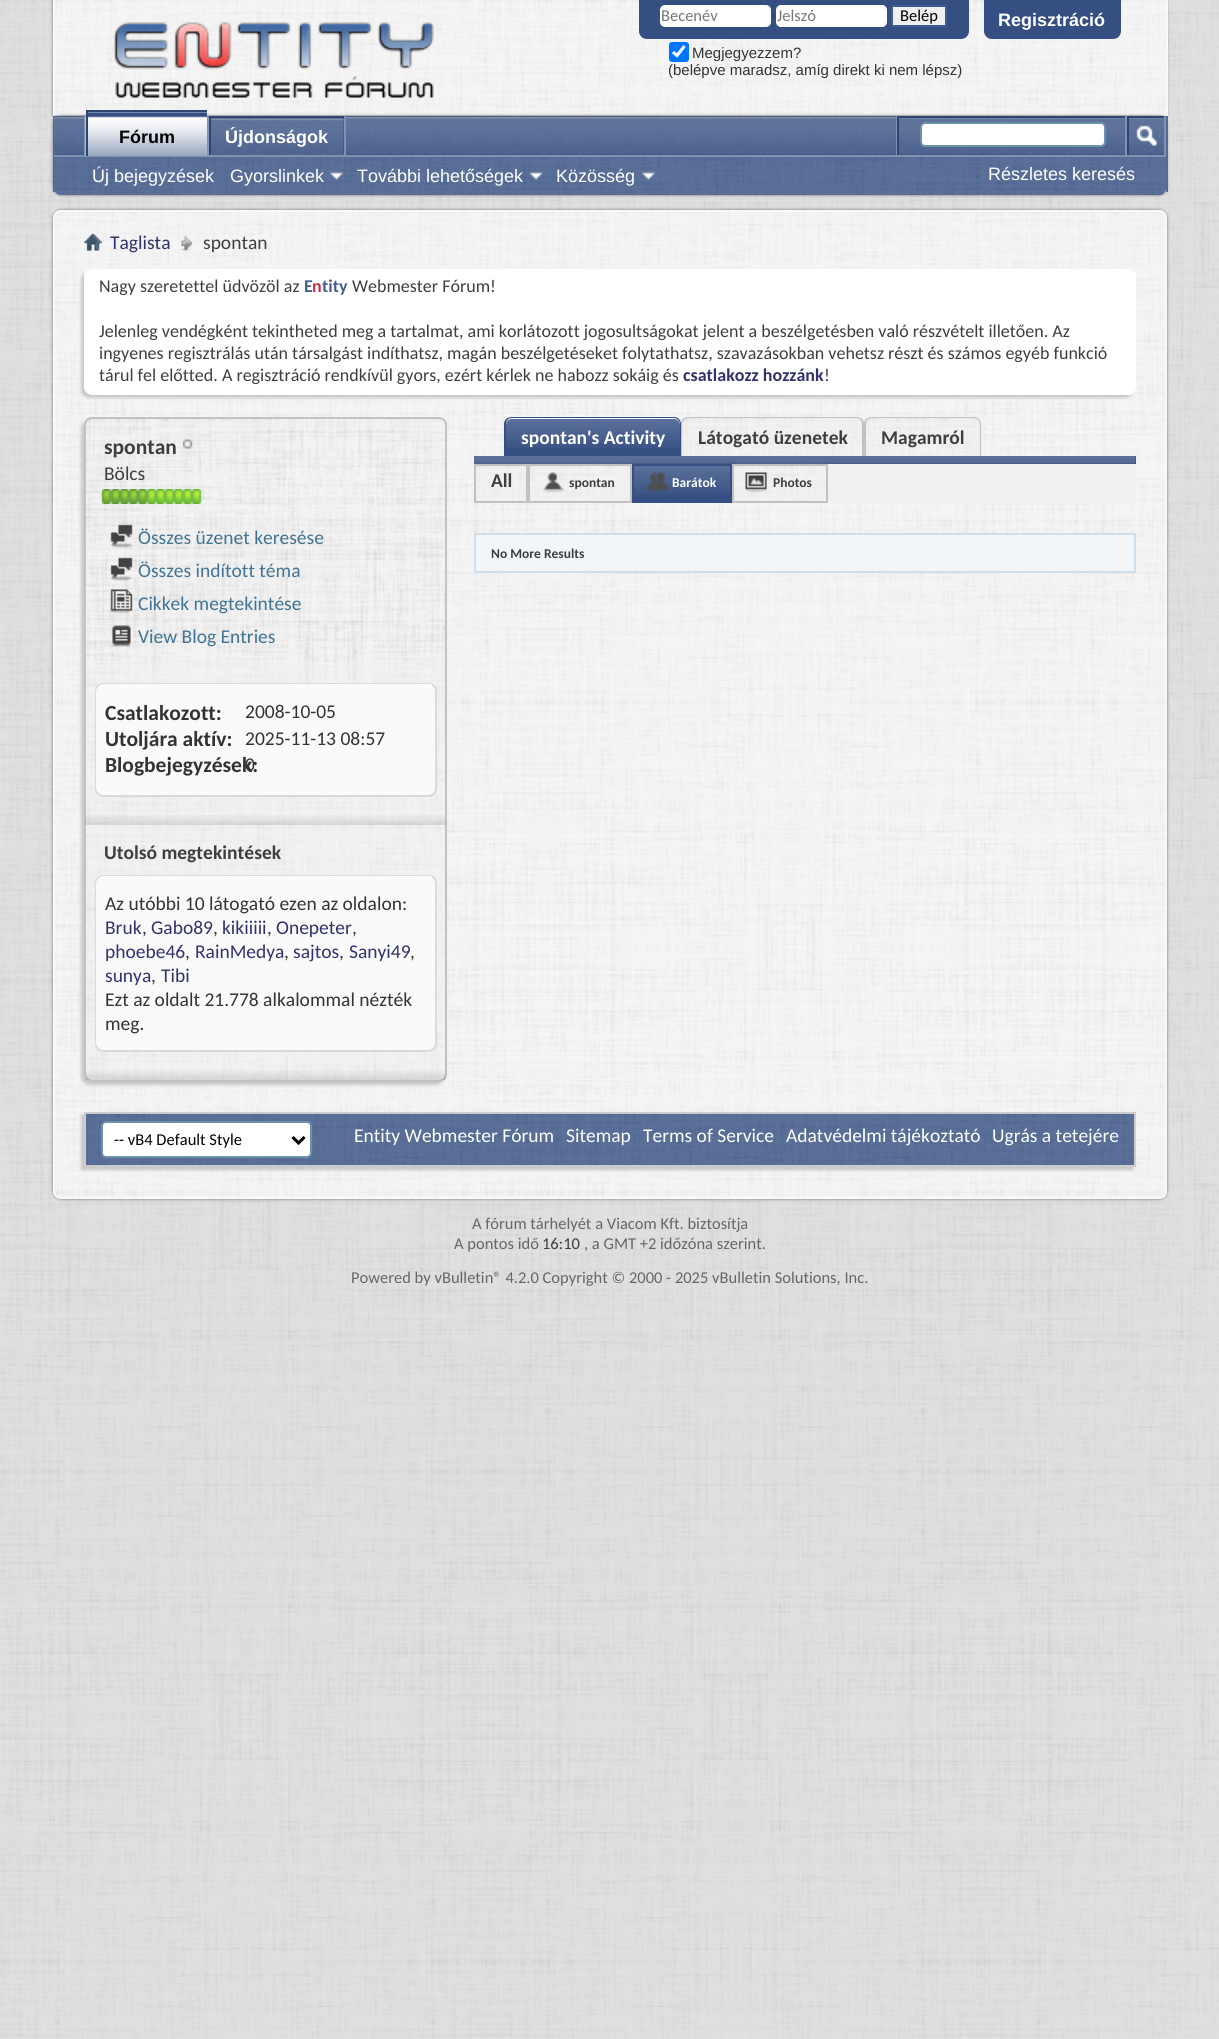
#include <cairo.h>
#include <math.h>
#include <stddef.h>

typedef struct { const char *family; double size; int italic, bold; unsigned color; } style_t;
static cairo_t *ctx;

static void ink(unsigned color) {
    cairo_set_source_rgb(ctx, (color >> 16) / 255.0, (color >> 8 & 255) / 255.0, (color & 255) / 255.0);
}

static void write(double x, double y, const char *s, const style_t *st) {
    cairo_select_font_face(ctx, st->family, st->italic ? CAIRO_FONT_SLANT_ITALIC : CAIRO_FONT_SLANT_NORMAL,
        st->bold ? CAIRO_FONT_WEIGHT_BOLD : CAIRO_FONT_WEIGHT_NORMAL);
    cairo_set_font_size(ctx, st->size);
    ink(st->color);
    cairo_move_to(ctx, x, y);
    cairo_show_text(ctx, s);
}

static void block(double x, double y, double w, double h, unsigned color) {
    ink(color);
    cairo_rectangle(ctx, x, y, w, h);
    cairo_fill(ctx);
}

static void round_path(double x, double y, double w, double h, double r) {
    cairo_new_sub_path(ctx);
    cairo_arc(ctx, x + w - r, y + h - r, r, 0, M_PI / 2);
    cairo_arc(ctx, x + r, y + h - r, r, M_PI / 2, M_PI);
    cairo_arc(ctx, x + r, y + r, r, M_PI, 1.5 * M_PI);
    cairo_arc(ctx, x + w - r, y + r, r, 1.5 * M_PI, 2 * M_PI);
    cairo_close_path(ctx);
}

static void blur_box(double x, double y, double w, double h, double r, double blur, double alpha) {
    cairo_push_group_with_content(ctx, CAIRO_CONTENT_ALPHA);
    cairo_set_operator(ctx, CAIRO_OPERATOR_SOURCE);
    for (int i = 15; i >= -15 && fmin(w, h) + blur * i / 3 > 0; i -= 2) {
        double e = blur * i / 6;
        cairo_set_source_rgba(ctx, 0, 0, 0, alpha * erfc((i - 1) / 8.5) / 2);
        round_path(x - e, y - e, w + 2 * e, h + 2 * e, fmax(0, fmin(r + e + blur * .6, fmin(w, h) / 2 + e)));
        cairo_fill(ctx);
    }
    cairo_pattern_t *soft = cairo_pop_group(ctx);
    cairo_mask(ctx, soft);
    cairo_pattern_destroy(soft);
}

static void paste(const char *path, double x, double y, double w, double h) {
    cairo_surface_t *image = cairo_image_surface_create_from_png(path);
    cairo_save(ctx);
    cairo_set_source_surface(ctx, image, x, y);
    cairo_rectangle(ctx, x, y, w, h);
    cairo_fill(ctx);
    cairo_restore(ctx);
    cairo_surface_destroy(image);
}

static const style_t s1 = {"Carlito", 16.5, 0, 0, 0x777777};
static const style_t s2 = {"Carlito", 16.5, 0, 0, 0x000000};
static const style_t s3 = {"Liberation Sans", 15, 0, 0, 0x333333};
static const style_t s4 = {"Liberation Sans", 18, 0, 1, 0xffffff};
static const style_t s5 = {"Liberation Sans", 18, 0, 1, 0x000000};
static const style_t s6 = {"Liberation Sans", 18, 0, 0, 0xffffff};
static const style_t s7 = {"Carlito", 19.5, 0, 0, 0x32326d};
static const style_t s8 = {"Carlito", 19.5, 0, 0, 0x3e3e3e};
static const style_t s9 = {"Carlito", 18, 0, 0, 0x3e3e3e};
static const style_t s10 = {"Carlito", 18, 0, 1, 0x475f8d};
static const style_t s11 = {"Carlito", 18, 0, 1, 0xc5314b};
static const style_t s12 = {"Carlito", 18, 0, 1, 0x32326d};
static const style_t s13 = {"Carlito", 21.5, 0, 1, 0x3e3e3e};
static const style_t s14 = {"Carlito", 19.5, 0, 0, 0x417394};
static const style_t s15 = {"Carlito", 21.5, 0, 1, 0x333333};
static const style_t s16 = {"Carlito", 19.5, 0, 0, 0x333333};
static const style_t s17 = {"Carlito", 19.5, 0, 1, 0x3e3e3e};
static const style_t s18 = {"Carlito", 19.5, 0, 1, 0xffffff};
static const style_t s19 = {"Carlito", 13.5, 0, 1, 0x3e3e3e};
static const style_t s20 = {"Carlito", 13.5, 0, 1, 0xffffff};
static const style_t s21 = {"Carlito", 19.5, 0, 0, 0xffffff};
static const style_t s22 = {"Carlito", 16.5, 0, 0, 0x666666};
static const style_t s23 = {"Carlito", 16.5, 0, 0, 0x3e3e3e};

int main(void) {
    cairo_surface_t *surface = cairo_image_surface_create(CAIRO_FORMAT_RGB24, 1219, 2039);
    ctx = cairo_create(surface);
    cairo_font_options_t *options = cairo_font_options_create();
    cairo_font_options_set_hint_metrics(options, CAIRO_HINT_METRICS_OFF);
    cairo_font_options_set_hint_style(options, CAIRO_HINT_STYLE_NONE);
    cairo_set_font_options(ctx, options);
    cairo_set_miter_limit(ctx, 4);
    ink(0xdbdbdb);
    cairo_paint(ctx);
    paste("pic1.png", 0, 0, 1219, 2039);
    ink(0xf5f5f5);
    cairo_new_path(ctx);
    cairo_move_to(ctx, 53, 0);
    cairo_line_to(ctx, 1167, 0);
    cairo_line_to(ctx, 1167, 187);
    cairo_curve_to(ctx, 1167, 191.5, 1163.5, 195, 1159, 195);
    cairo_line_to(ctx, 61, 195);
    cairo_curve_to(ctx, 56.5, 195, 53, 191.5, 53, 187);
    cairo_close_path(ctx);
    cairo_fill(ctx);
    paste("pic2.png", 54, 0, 1112, 195);
    cairo_save(ctx);
    cairo_set_fill_rule(ctx, CAIRO_FILL_RULE_EVEN_ODD);
    cairo_new_path(ctx);
    cairo_move_to(ctx, 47, 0);
    cairo_line_to(ctx, 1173, 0);
    cairo_line_to(ctx, 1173, 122);
    cairo_line_to(ctx, 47, 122);
    cairo_close_path(ctx);
    cairo_move_to(ctx, 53, 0);
    cairo_line_to(ctx, 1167, 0);
    cairo_line_to(ctx, 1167, 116);
    cairo_line_to(ctx, 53, 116);
    cairo_close_path(ctx);
    cairo_clip(ctx);
    ink(0x000000);
    blur_box(53, 0, 1114, 116, 0, 1.5, 0.5);
    cairo_restore(ctx);
    block(1166, 0, 2, 116, 0xf9f9f9);
    block(53, 0, 2, 116, 0xf9f9f9);
    paste("pic3.png", 113, 22, 321, 76);
    ink(0x354f82);
    cairo_new_path(ctx);
    cairo_move_to(ctx, 639, 0);
    cairo_line_to(ctx, 969, 0);
    cairo_line_to(ctx, 969, 31);
    cairo_curve_to(ctx, 969, 35.5, 965.5, 39, 961, 39);
    cairo_line_to(ctx, 647, 39);
    cairo_curve_to(ctx, 642.5, 39, 639, 35.5, 639, 31);
    cairo_close_path(ctx);
    cairo_fill(ctx);
    ink(0xffffff);
    round_path(660, 5, 111, 22, 5);
    cairo_fill(ctx);
    write(661, 21, "Becenév", &s1);
    ink(0xffffff);
    round_path(776, 5, 111, 22, 5);
    cairo_fill(ctx);
    write(777, 21, "Jelszó", &s1);
    ink(0xefefef);
    cairo_rectangle(ctx, 892, 6, 54, 20);
    cairo_fill_preserve(ctx);
    ink(0x415d8d);
    cairo_stroke(ctx);
    write(900, 21, "Belép", &s2);
    ink(0x0075ff);
    round_path(669, 42, 20, 20, 3);
    cairo_fill(ctx);
    cairo_new_path(ctx);
    cairo_move_to(ctx, 673, 52);
    cairo_line_to(ctx, 677, 55.5);
    cairo_line_to(ctx, 684.5, 46);
    ink(0xffffff);
    cairo_set_line_width(ctx, 3.1);
    cairo_stroke(ctx);
    write(692, 58, "Megjegyezzem?", &s3);
    write(668, 75, "(belépve maradsz, amíg direkt ki nem lépsz)", &s3);
    ink(0x354f82);
    cairo_new_path(ctx);
    cairo_move_to(ctx, 984, 0);
    cairo_line_to(ctx, 1121, 0);
    cairo_line_to(ctx, 1121, 31);
    cairo_curve_to(ctx, 1121, 35.5, 1117.5, 39, 1113, 39);
    cairo_line_to(ctx, 992, 39);
    cairo_curve_to(ctx, 987.5, 39, 984, 35.5, 984, 31);
    cairo_close_path(ctx);
    cairo_fill(ctx);
    write(998, 26, "Regisztráció", &s4);
    ink(0x000000);
    blur_box(53, 116, 1114, 79, 8, 1.5, 0.5);
    ink(0x354f82);
    cairo_new_path(ctx);
    cairo_move_to(ctx, 54, 116);
    cairo_line_to(ctx, 1166, 116);
    cairo_line_to(ctx, 1166, 188);
    cairo_curve_to(ctx, 1166, 192, 1163, 195, 1160, 195);
    cairo_line_to(ctx, 60, 195);
    cairo_curve_to(ctx, 57, 195, 54, 192, 54, 188);
    cairo_close_path(ctx);
    cairo_fill(ctx);
    paste("pic4.png", 54, 157, 1112, 38);
    block(1166, 116, 2, 76, 0x556b96);
    block(53, 116, 2, 76, 0x556b96);
    block(54, 116, 1, 39, 0x354f82);
    paste("pic5.png", 54, 115, 1112, 40);
    block(344, 116, 2, 40, 0x8092b2);
    block(211, 118, 133, 37, 0x354f82);
    block(207, 116, 2, 39, 0x8092b2);
    paste("pic6.png", 208, 117, 136, 38);
    block(209, 116, 135, 2, 0x2d4572);
    block(209, 116, 2, 40, 0x2d4572);
    write(225, 143, "Újdonságok", &s4);
    block(84, 116, 2, 39, 0x8092b2);
    block(54, 155, 1112, 2, 0x8092b2);
    block(88, 112, 119, 44, 0x354f82);
    paste("pic7.png", 85, 111, 122, 45);
    block(86, 110, 121, 2, 0x2d4572);
    block(86, 110, 2, 46, 0x2d4572);
    write(119, 143, "Fórum", &s5);
    write(92, 182, "Új bejegyzések", &s6);
    write(230, 182, "Gyorslinkek", &s6);
    paste("pic8.png", 330, 171, 14, 9);
    write(357, 182, "További lehetőségek", &s6);
    paste("pic9.png", 529, 171, 14, 9);
    write(556, 182, "Közösség", &s6);
    paste("pic10.png", 642, 171, 14, 9);
    block(896, 116, 1, 39, 0x8092b2);
    block(897, 116, 228, 2, 0x2d4572);
    block(897, 116, 2, 39, 0x2d4572);
    ink(0xffffff);
    round_path(921, 123, 184, 23, 4);
    cairo_fill_preserve(ctx);
    ink(0x6b91ab);
    cairo_set_line_width(ctx, 2);
    cairo_stroke(ctx);
    block(1164, 116, 2, 39, 0x8092b2);
    block(1125, 116, 2, 39, 0x8092b2);
    block(1127, 116, 37, 2, 0x2d4572);
    block(1127, 116, 2, 39, 0x2d4572);
    paste("pic11.png", 1136, 125, 21, 22);
    write(988, 180, "Részletes keresés", &s6);
    ink(0x000000);
    blur_box(53, 210, 1114, 989, 8, 1.5, 0.5);
    ink(0xf5f5f5);
    round_path(53, 210, 1114, 989, 8);
    cairo_fill(ctx);
    paste("pic12.png", 53, 210, 1114, 988);
    round_path(54, 211, 1112, 987, 7);
    ink(0xf9f9f9);
    cairo_stroke(ctx);
    paste("pic13.png", 84, 233, 18, 18);
    paste("pic14.png", 181, 235, 11, 16);
    write(110, 249, "Taglista", &s7);
    write(203, 249, "spontan", &s8);
    block(84, 269, 1052, 126, 0xf5f5f5);
    ink(0xc8c8c8);
    blur_box(81, 272, 1052, 126, 8, 1.5, 1);
    ink(0xffffff);
    round_path(84, 269, 1052, 126, 8);
    cairo_fill(ctx);
    write(99, 292, "Nagy szeretettel üdvözöl az", &s9);
    write(304, 292, "E", &s10);
    write(312, 292, "n", &s11);
    write(322, 292, "tity", &s10);
    write(352, 292, "Webmester Fórum!", &s9);
    write(99, 337, "Jelenleg vendégként tekintheted meg a tartalmat, ami korlátozott jogosultságokat jelent a beszélgetésben való részvételt illetően. Az", &s9);
    write(99, 359, "ingyenes regisztrálás után társalgást indíthatsz, magán beszélgetéseket folytathatsz, szavazásokban vehetsz részt és számos egyéb funkció", &s9);
    write(99, 381, "tárul fel előtted. A regisztráció rendkívül gyors, ezért kérlek ne habozz sokáig és", &s9);
    write(683, 381, "csatlakozz hozzánk", &s12);
    write(824, 381, "!", &s9);
    ink(0xc8c8c8);
    blur_box(81, 420, 363, 665, 8, 1.5, 1);
    ink(0xf1f1f1);
    round_path(84, 417, 363, 665, 8);
    cairo_fill(ctx);
    paste("pic15.png", 84, 417, 363, 664);
    round_path(85, 418, 361, 663, 7);
    ink(0xc1c1c1);
    cairo_stroke(ctx);
    paste("pic16.png", 85, 418, 361, 243);
    write(104, 454, "spontan", &s13);
    paste("pic17.png", 182, 439, 11, 10);
    write(104, 480, "Bölcs", &s8);
    paste("pic18.png", 100, 489, 12, 15);
    paste("pic19.png", 110, 489, 11, 15);
    paste("pic20.png", 119, 489, 11, 15);
    paste("pic21.png", 128, 489, 11, 15);
    paste("pic22.png", 137, 489, 11, 15);
    paste("pic23.png", 146, 489, 11, 15);
    paste("pic24.png", 155, 489, 11, 15);
    paste("pic25.png", 164, 489, 11, 15);
    paste("pic26.png", 173, 489, 11, 15);
    paste("pic27.png", 182, 489, 11, 15);
    paste("pic28.png", 191, 489, 11, 15);
    paste("pic29.png", 110, 524, 23, 24);
    write(138, 544, "Összes üzenet keresése", &s14);
    paste("pic30.png", 110, 557, 23, 24);
    write(138, 577, "Összes indított téma", &s14);
    paste("pic31.png", 110, 589, 23, 25);
    write(138, 610, "Cikkek megtekintése", &s14);
    paste("pic32.png", 110, 625, 21, 22);
    write(138, 643, "View Blog Entries", &s14);
    round_path(96, 684, 340, 112, 7);
    ink(0xdadada);
    cairo_stroke(ctx);
    ink(0xfafafa);
    round_path(96, 684, 339, 111, 8);
    cairo_fill(ctx);
    block(101, 684, 331, 2, 0xfafafa);
    write(105, 720, "Csatlakozott:", &s15);
    write(245, 718, "2008-10-05", &s16);
    write(105, 746, "Utoljára aktív:", &s15);
    write(245, 745, "2025-11-13 08:57", &s16);
    write(105, 772, "Blogbejegyzések:", &s15);
    write(245, 771, "0", &s16);
    paste("pic33.png", 85, 815, 361, 10);
    write(104, 859, "Utolsó megtekintések", &s17);
    round_path(96, 876, 340, 175, 7);
    ink(0xdadada);
    cairo_stroke(ctx);
    ink(0xfafafa);
    round_path(96, 876, 339, 174, 8);
    cairo_fill(ctx);
    block(101, 876, 331, 2, 0xfafafa);
    write(105, 910, "Az utóbbi 10 látogató ezen az oldalon:", &s16);
    write(105, 934, "Bruk", &s7);
    write(142, 934, ",", &s16);
    write(151, 934, "Gabo89", &s7);
    write(213, 934, ",", &s16);
    write(222, 934, "kikiiiii", &s7);
    write(267, 934, ",", &s16);
    write(276, 934, "Onepeter", &s7);
    write(352, 934, ",", &s16);
    write(105, 958, "phoebe46", &s7);
    write(185, 958, ",", &s16);
    write(195, 958, "RainMedya", &s7);
    write(284, 958, ",", &s16);
    write(293, 958, "sajtos", &s7);
    write(339, 958, ",", &s16);
    write(349, 958, "Sanyi49", &s7);
    write(410, 958, ",", &s16);
    write(105, 982, "sunya", &s7);
    write(151, 982, ",", &s16);
    write(161, 982, "Tibi", &s7);
    write(105, 1006, "Ezt az oldalt 21.778 alkalommal nézték", &s16);
    write(105, 1030, "meg.", &s16);
    paste("pic34.png", 85, 1070, 361, 10);
    ink(0x354f82);
    cairo_new_path(ctx);
    cairo_move_to(ctx, 512, 419);
    cairo_line_to(ctx, 674, 419);
    cairo_curve_to(ctx, 677.5, 419, 680, 421.5, 680, 425);
    cairo_line_to(ctx, 680, 456);
    cairo_line_to(ctx, 506, 456);
    cairo_line_to(ctx, 506, 425);
    cairo_curve_to(ctx, 506, 421.5, 508.5, 419, 512, 419);
    cairo_close_path(ctx);
    cairo_fill(ctx);
    paste("pic35.png", 506, 419, 174, 30);
    cairo_set_fill_rule(ctx, CAIRO_FILL_RULE_EVEN_ODD);
    cairo_new_path(ctx);
    cairo_move_to(ctx, 512, 417);
    cairo_line_to(ctx, 674, 417);
    cairo_curve_to(ctx, 678, 417, 681, 420, 681, 424);
    cairo_line_to(ctx, 681, 456);
    cairo_line_to(ctx, 504, 456);
    cairo_line_to(ctx, 504, 424);
    cairo_curve_to(ctx, 504, 420, 507, 417, 512, 417);
    cairo_close_path(ctx);
    cairo_move_to(ctx, 512, 418);
    cairo_line_to(ctx, 674, 418);
    cairo_curve_to(ctx, 677, 418, 680, 421, 680, 424);
    cairo_line_to(ctx, 680, 456);
    cairo_line_to(ctx, 506, 456);
    cairo_line_to(ctx, 506, 424);
    cairo_curve_to(ctx, 506, 421, 508, 418, 512, 418);
    cairo_close_path(ctx);
    cairo_fill(ctx);
    write(521, 444, "spontan's Activity", &s18);
    ink(0xf1f1f1);
    cairo_new_path(ctx);
    cairo_move_to(ctx, 689, 419);
    cairo_line_to(ctx, 857, 419);
    cairo_curve_to(ctx, 860.5, 419, 863, 421.5, 863, 425);
    cairo_line_to(ctx, 863, 456);
    cairo_line_to(ctx, 683, 456);
    cairo_line_to(ctx, 683, 425);
    cairo_curve_to(ctx, 683, 421.5, 685.5, 419, 689, 419);
    cairo_close_path(ctx);
    cairo_fill(ctx);
    paste("pic36.png", 681, 417, 183, 39);
    ink(0xc1c1c1);
    cairo_new_path(ctx);
    cairo_move_to(ctx, 688, 417);
    cairo_line_to(ctx, 856, 417);
    cairo_curve_to(ctx, 861, 417, 864, 420, 864, 424);
    cairo_line_to(ctx, 864, 456);
    cairo_line_to(ctx, 681, 456);
    cairo_line_to(ctx, 681, 424);
    cairo_curve_to(ctx, 681, 420, 684, 417, 688, 417);
    cairo_close_path(ctx);
    cairo_move_to(ctx, 688, 418);
    cairo_line_to(ctx, 856, 418);
    cairo_curve_to(ctx, 860, 418, 862, 421, 862, 424);
    cairo_line_to(ctx, 862, 456);
    cairo_line_to(ctx, 682, 456);
    cairo_line_to(ctx, 682, 424);
    cairo_curve_to(ctx, 682, 421, 685, 418, 688, 418);
    cairo_close_path(ctx);
    cairo_fill(ctx);
    write(698, 444, "Látogató üzenetek", &s17);
    ink(0xf1f1f1);
    cairo_new_path(ctx);
    cairo_move_to(ctx, 872, 419);
    cairo_line_to(ctx, 974, 419);
    cairo_curve_to(ctx, 977.5, 419, 980, 421.5, 980, 425);
    cairo_line_to(ctx, 980, 456);
    cairo_line_to(ctx, 866, 456);
    cairo_line_to(ctx, 866, 425);
    cairo_curve_to(ctx, 866, 421.5, 868.5, 419, 872, 419);
    cairo_close_path(ctx);
    cairo_fill(ctx);
    paste("pic37.png", 864, 417, 117, 39);
    ink(0xc1c1c1);
    cairo_new_path(ctx);
    cairo_move_to(ctx, 872, 417);
    cairo_line_to(ctx, 974, 417);
    cairo_curve_to(ctx, 978, 417, 981, 420, 981, 424);
    cairo_line_to(ctx, 981, 456);
    cairo_line_to(ctx, 864, 456);
    cairo_line_to(ctx, 864, 424);
    cairo_curve_to(ctx, 864, 420, 867, 417, 872, 417);
    cairo_close_path(ctx);
    cairo_move_to(ctx, 872, 418);
    cairo_line_to(ctx, 974, 418);
    cairo_curve_to(ctx, 977, 418, 980, 421, 980, 424);
    cairo_line_to(ctx, 980, 456);
    cairo_line_to(ctx, 866, 456);
    cairo_line_to(ctx, 866, 424);
    cairo_curve_to(ctx, 866, 421, 868, 418, 872, 418);
    cairo_close_path(ctx);
    cairo_fill(ctx);
    write(881, 444, "Magamról", &s17);
    block(474, 456, 662, 8, 0x354f82);
    paste("pic38.png", 474, 456, 662, 8);
    block(476, 464, 660, 39, 0xf1f1f1);
    paste("pic39.png", 474, 463, 54, 38);
    cairo_rectangle(ctx, 475, 465, 52, 37);
    ink(0xc1c1c1);
    cairo_stroke(ctx);
    write(491, 487, "All", &s17);
    paste("pic40.png", 528, 463, 103, 38);
    cairo_rectangle(ctx, 529, 465, 102, 37);
    ink(0xc1c1c1);
    cairo_stroke(ctx);
    paste("pic41.png", 543, 472, 22, 20);
    write(569, 487, "spontan", &s19);
    block(634, 466, 96, 35, 0x354f82);
    paste("pic42.png", 631, 465, 99, 30);
    cairo_rectangle(ctx, 633, 465, 98, 37);
    cairo_stroke(ctx);
    paste("pic43.png", 645, 472, 24, 20);
    write(672, 487, "Barátok", &s20);
    paste("pic44.png", 732, 463, 96, 38);
    cairo_rectangle(ctx, 733, 465, 94, 37);
    ink(0xc1c1c1);
    cairo_stroke(ctx);
    paste("pic45.png", 745, 472, 23, 20);
    write(773, 487, "Photos", &s19);
    ink(0xf2f6f8);
    cairo_rectangle(ctx, 475, 534, 660, 38);
    cairo_fill_preserve(ctx);
    ink(0xcedfeb);
    cairo_stroke(ctx);
    write(491, 558, "No More Results", &s19);
    ink(0xc6c6c6);
    blur_box(81, 1115, 1052, 55, 0, 1.5, 1);
    block(86, 1114, 1048, 51, 0x354f82);
    paste("pic46.png", 86, 1114, 1048, 51);
    cairo_rectangle(ctx, 85, 1113, 1050, 53);
    ink(0xcccccc);
    cairo_stroke(ctx);
    ink(0xffffff);
    round_path(102, 1122, 209, 35, 4);
    cairo_fill_preserve(ctx);
    ink(0x6b91ab);
    cairo_stroke(ctx);
    cairo_new_path(ctx);
    cairo_move_to(ctx, 292.5, 1137);
    cairo_line_to(ctx, 298.5, 1143);
    cairo_line_to(ctx, 304.5, 1137);
    ink(0x000000);
    cairo_set_line_width(ctx, 3);
    cairo_stroke(ctx);
    write(114, 1145, "-- vB4 Default Style", &s2);
    write(354, 1142, "Entity Webmester Fórum", &s21);
    write(566, 1142, "Sitemap", &s21);
    write(643, 1142, "Terms of Service", &s21);
    write(786, 1142, "Adatvédelmi tájékoztató", &s21);
    write(992, 1142, "Ugrás a tetejére", &s21);
    write(472, 1229, "A fórum tárhelyét a Viacom Kft. biztosítja", &s22);
    write(454, 1249, "A pontos idő", &s22);
    write(542, 1249, "16:10", &s23);
    write(584, 1249, ", a GMT +2 időzóna szerint.", &s22);
    write(351, 1283, "Powered by vBulletin® 4.2.0 Copyright © 2000 - 2025 vBulletin Solutions, Inc.", &s22);
    cairo_surface_write_to_png(surface, "screenshot.png");
    cairo_font_options_destroy(options);
    cairo_destroy(ctx);
    cairo_surface_destroy(surface);
    return 0;
}
